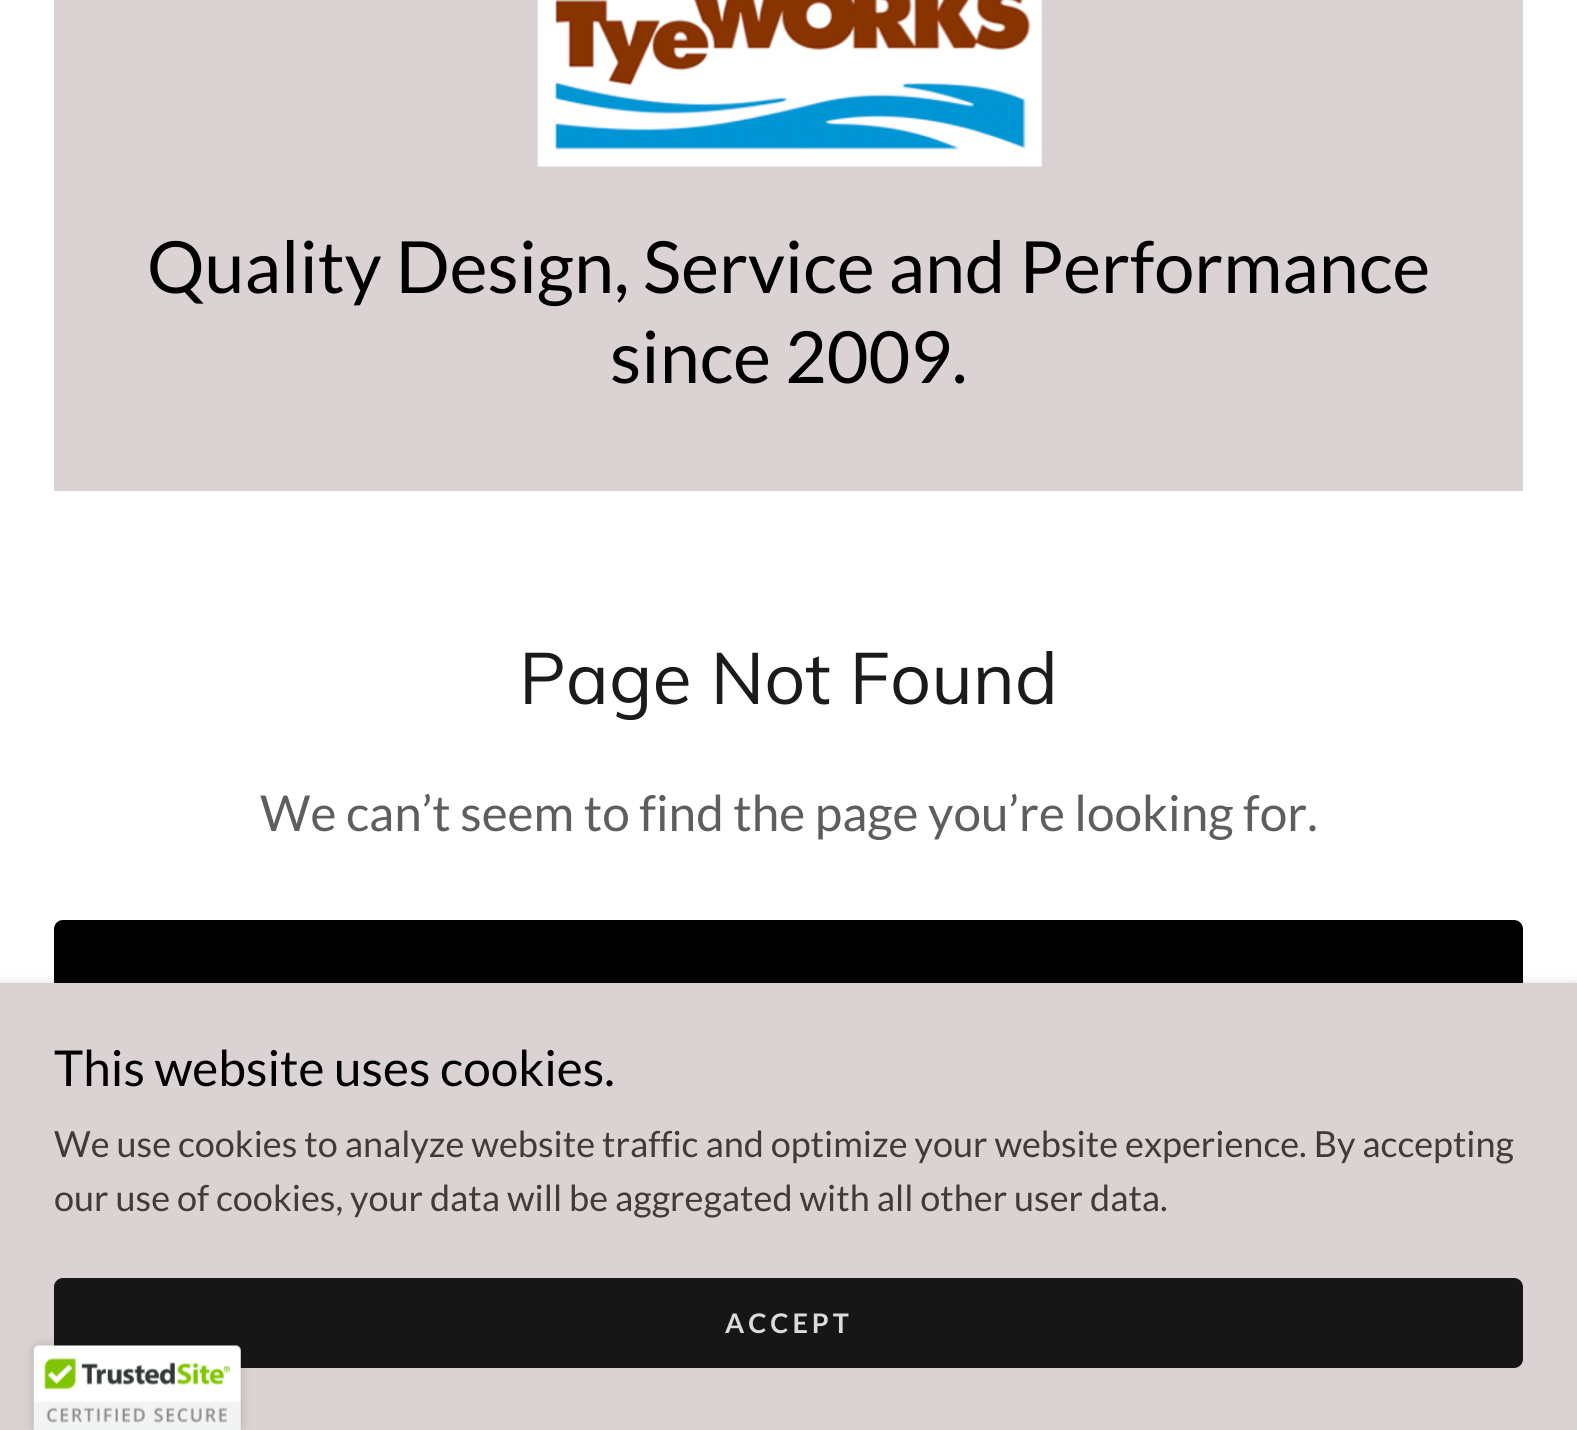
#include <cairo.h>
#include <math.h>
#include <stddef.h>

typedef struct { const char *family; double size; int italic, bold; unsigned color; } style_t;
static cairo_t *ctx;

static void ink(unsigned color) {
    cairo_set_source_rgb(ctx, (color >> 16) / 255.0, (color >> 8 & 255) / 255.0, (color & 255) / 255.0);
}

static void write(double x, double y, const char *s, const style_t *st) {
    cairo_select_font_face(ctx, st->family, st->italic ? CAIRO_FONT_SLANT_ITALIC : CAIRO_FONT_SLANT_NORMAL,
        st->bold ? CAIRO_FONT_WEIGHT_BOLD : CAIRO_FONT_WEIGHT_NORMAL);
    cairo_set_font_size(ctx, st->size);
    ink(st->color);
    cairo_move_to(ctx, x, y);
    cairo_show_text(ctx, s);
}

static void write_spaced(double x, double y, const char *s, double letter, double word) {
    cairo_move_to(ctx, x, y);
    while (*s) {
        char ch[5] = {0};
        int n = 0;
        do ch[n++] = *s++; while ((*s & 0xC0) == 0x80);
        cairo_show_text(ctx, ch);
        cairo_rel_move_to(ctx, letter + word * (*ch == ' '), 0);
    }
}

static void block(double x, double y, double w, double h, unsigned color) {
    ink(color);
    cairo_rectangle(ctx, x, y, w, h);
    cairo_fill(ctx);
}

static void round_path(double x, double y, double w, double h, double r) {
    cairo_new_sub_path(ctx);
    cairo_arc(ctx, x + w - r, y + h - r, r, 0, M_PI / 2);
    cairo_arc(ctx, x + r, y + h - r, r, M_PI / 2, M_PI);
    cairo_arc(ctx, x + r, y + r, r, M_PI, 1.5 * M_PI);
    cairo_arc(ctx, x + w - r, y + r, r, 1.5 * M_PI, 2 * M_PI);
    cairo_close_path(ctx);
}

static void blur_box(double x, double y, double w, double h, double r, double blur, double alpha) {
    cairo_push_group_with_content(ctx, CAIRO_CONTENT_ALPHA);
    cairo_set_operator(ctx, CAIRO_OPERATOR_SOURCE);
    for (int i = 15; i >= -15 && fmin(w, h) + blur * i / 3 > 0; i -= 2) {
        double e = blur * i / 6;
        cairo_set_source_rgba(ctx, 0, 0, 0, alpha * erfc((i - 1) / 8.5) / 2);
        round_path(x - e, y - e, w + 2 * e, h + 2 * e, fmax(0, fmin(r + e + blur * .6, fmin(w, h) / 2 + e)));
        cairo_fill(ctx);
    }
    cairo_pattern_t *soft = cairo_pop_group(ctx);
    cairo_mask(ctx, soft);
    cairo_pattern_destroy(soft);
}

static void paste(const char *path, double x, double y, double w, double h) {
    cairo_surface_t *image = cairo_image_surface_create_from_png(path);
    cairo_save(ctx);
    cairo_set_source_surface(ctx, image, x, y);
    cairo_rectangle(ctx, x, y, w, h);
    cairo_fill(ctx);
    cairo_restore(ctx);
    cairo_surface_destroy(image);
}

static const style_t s1 = {"Lato", 72, 0, 0, 0x000000};
static const style_t s2 = {"Muli", 72, 0, 0, 0x1b1b1b};
static const style_t s3 = {"Lato", 49.5, 0, 0, 0x5e5e5e};
static const style_t s4 = {"Lato", 49.5, 0, 0, 0x000000};
static const style_t s5 = {"Lato", 36, 0, 0, 0x403a3a};

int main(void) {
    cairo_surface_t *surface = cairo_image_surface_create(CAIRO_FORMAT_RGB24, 1577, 1430);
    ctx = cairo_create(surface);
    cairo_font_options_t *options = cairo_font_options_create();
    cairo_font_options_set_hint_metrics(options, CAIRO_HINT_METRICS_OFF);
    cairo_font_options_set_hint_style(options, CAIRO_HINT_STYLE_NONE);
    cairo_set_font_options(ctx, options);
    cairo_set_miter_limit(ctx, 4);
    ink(0xffffff);
    cairo_paint(ctx);
    block(54, 0, 1469, 491, 0xdbd3d3);
    paste("pic1.png", 537, 0, 505, 167);
    write(147, 293, "Quality Design, Service and Performance", &s1);
    write(610, 383, "since 2009.", &s1);
    write(519, 704, "Page Not Found", &s2);
    write(260, 831, "We can’t seem to find the page you’re looking for.", &s3);
    ink(0x000000);
    round_path(54, 920, 1469, 126, 9);
    cairo_fill(ctx);
    ink(0x000000);
    blur_box(0, 988, 1577, 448, 0, 7, 0.3);
    block(0, 983, 1577, 447, 0xdbd3d3);
    write(54, 1086, "This website uses cookies.", &s4);
    write(54, 1157, "We use cookies to analyze website traffic and optimize your website experience. By accepting", &s5);
    write(54, 1211, "our use of cookies, your data will be aggregated with all other user data.", &s5);
    ink(0x161616);
    round_path(54, 1278, 1469, 90, 9);
    cairo_fill(ctx);
    cairo_select_font_face(ctx, "Lato", CAIRO_FONT_SLANT_NORMAL, CAIRO_FONT_WEIGHT_BOLD);
    cairo_set_font_size(ctx, 27);
    ink(0xdbdbdb);
    write_spaced(725, 1333, "ACCEPT", 4, 0);
    ink(0x000000);
    blur_box(34, 1346, 207, 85, 5, 5.5, 0.2);
    paste("pic2.png", 33, 1345, 208, 85);
    cairo_surface_write_to_png(surface, "screenshot.png");
    cairo_font_options_destroy(options);
    cairo_destroy(ctx);
    cairo_surface_destroy(surface);
    return 0;
}
